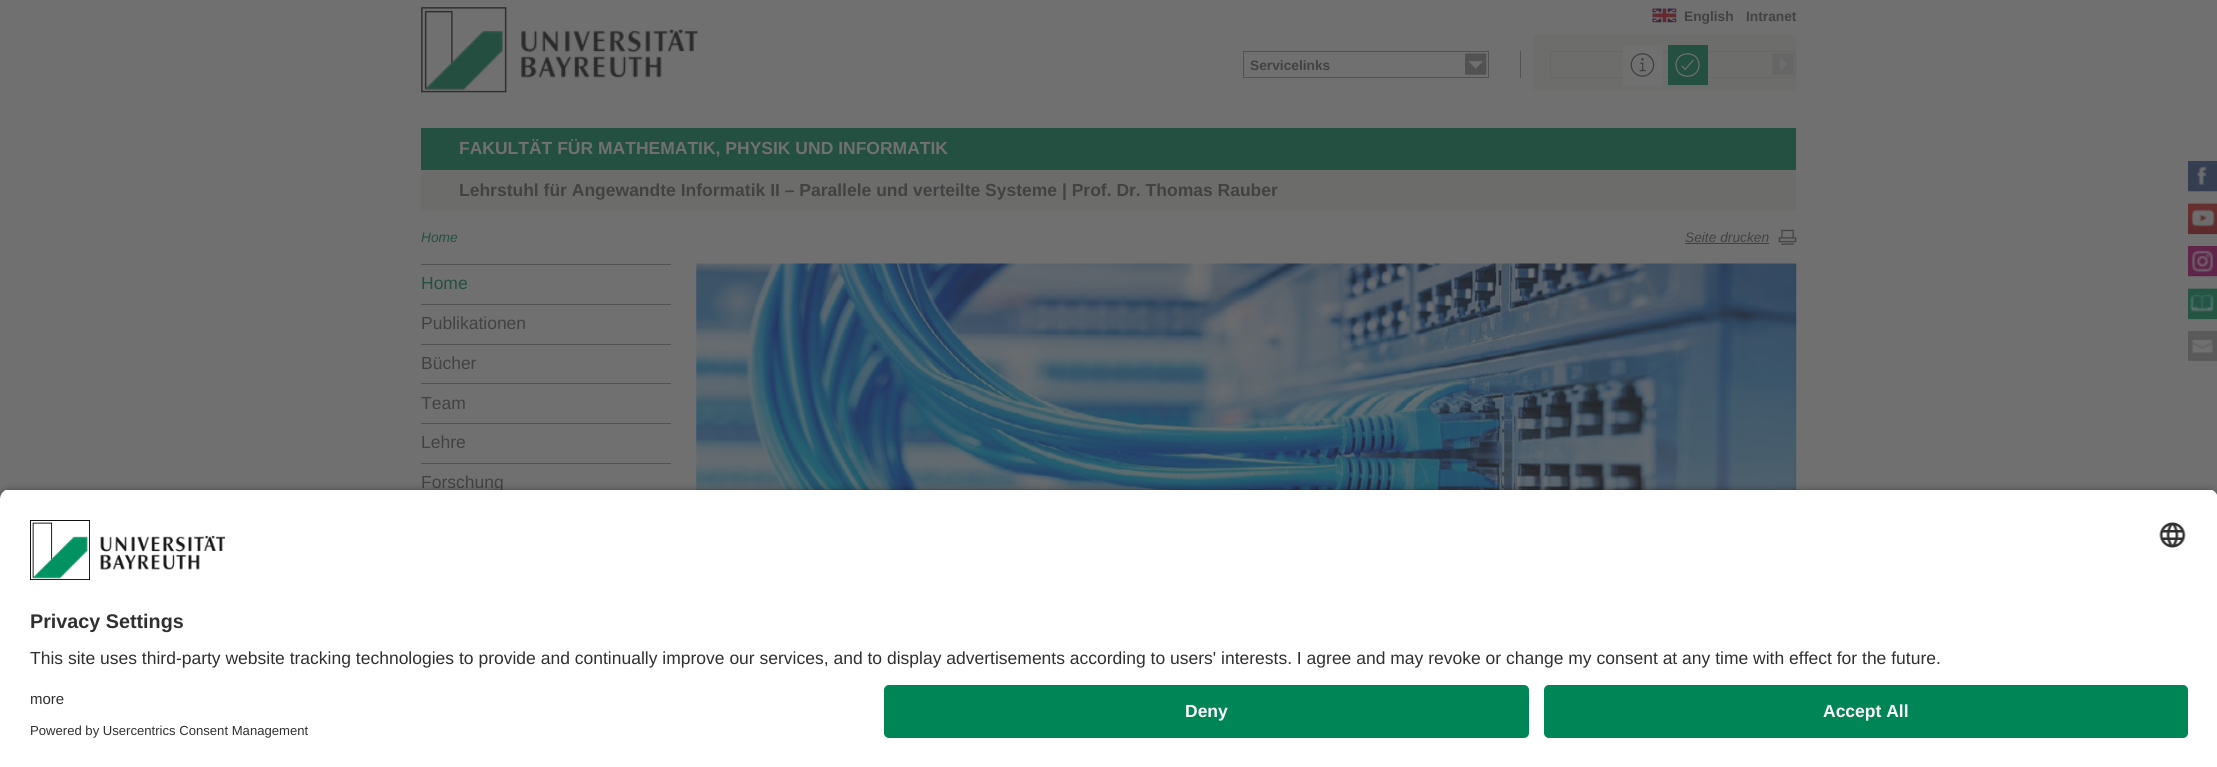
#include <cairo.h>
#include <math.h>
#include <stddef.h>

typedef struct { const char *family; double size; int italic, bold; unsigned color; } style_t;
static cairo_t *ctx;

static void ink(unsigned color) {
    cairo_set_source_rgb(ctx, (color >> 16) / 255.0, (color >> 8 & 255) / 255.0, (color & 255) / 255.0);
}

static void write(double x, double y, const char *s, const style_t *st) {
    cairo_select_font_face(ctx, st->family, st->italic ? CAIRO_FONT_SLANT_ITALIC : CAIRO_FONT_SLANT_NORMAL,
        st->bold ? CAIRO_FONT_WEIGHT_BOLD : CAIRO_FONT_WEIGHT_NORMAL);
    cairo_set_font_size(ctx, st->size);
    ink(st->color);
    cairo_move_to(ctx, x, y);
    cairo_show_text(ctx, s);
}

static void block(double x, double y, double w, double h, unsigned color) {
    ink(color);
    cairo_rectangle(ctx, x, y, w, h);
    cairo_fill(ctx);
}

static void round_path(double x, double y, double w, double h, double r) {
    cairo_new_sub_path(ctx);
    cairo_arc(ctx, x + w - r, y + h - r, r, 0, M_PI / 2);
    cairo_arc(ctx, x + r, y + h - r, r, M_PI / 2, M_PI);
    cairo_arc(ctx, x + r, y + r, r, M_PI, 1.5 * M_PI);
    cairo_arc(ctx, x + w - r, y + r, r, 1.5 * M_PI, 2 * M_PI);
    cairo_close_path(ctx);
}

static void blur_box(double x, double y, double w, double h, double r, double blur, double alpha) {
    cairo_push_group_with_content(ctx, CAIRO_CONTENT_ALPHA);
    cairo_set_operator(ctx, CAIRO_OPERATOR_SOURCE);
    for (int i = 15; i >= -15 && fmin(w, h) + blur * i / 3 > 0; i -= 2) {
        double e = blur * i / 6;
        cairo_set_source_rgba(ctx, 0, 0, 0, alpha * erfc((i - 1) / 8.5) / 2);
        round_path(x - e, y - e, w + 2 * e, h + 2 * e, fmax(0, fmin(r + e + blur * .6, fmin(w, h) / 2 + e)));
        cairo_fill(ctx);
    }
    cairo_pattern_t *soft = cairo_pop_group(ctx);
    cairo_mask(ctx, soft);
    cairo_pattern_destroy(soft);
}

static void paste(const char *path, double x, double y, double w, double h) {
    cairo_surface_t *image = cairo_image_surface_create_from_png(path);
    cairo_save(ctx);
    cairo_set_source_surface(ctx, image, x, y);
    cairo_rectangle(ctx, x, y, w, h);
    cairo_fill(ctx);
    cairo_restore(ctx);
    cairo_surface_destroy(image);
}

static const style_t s1 = {"Liberation Sans", 13.75, 0, 1, 0x424242};
static const style_t s2 = {"Liberation Sans", 17.5, 0, 1, 0x707070};
static const style_t s3 = {"Liberation Sans", 17.5, 0, 1, 0x424242};
static const style_t s4 = {"Liberation Sans", 13.75, 1, 0, 0x245041};
static const style_t s5 = {"Liberation Sans", 13.75, 1, 0, 0x424242};
static const style_t s6 = {"Liberation Sans", 17.5, 0, 0, 0x245041};
static const style_t s7 = {"Liberation Sans", 17.5, 0, 0, 0x424242};
static const style_t s8 = {"Liberation Sans", 19.75, 0, 1, 0x303030};
static const style_t s9 = {"Liberation Sans", 17.5, 0, 0, 0x303030};
static const style_t s10 = {"Liberation Sans", 15, 0, 0, 0x303030};
static const style_t s11 = {"Liberation Sans", 13.1, 0, 0, 0x303030};
static const style_t s12 = {"Liberation Sans", 17.5, 0, 1, 0xfafafa};

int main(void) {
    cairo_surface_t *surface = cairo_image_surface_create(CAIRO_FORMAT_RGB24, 2217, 767);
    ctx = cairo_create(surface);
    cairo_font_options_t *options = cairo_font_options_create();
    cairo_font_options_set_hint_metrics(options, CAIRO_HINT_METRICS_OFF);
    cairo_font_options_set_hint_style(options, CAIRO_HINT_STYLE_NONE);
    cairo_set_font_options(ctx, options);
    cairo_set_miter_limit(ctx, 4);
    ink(0x707070);
    cairo_paint(ctx);
    block(1534, 35, 262, 56, 0x6d6d6c);
    paste("pic1.png", 421, 7, 277, 86);
    paste("pic2.png", 1652, 8, 25, 15);
    write(1684, 21, "English", &s1);
    write(1746, 21, "Intranet", &s1);
    paste("pic3.png", 1465, 53, 22, 22);
    cairo_rectangle(ctx, 1243.5, 51.5, 245, 26);
    ink(0x525252);
    cairo_set_line_width(ctx, 1);
    cairo_stroke(ctx);
    write(1250, 70, "Servicelinks", &s1);
    cairo_rectangle(ctx, 1550.5, 51.5, 245, 26);
    ink(0x676766);
    cairo_stroke(ctx);
    block(1623, 45, 40, 40, 0x707070);
    paste("pic4.png", 1630, 53, 25, 24);
    block(1668, 45, 40, 40, 0x245041);
    cairo_new_path(ctx);
    cairo_move_to(ctx, 1699, 65);
    cairo_curve_to(ctx, 1699, 50, 1676, 50, 1676, 65);
    cairo_curve_to(ctx, 1676, 80, 1699, 80, 1699, 65);
    cairo_close_path(ctx);
    ink(0x707070);
    cairo_set_line_width(ctx, 1.2);
    cairo_stroke(ctx);
    cairo_new_path(ctx);
    cairo_move_to(ctx, 1693, 60.5);
    cairo_line_to(ctx, 1685, 69.5);
    cairo_line_to(ctx, 1682, 66);
    cairo_set_line_cap(ctx, CAIRO_LINE_CAP_ROUND);
    cairo_set_line_join(ctx, CAIRO_LINE_JOIN_ROUND);
    cairo_stroke(ctx);
    block(1520, 51, 1, 27, 0x525252);
    block(1773, 54, 21, 21, 0x676766);
    paste("pic5.png", 1772, 53, 22, 22);
    block(421, 128, 1375, 42, 0x245041);
    write(459, 154, "FAKULTÄT FÜR MATHEMATIK, PHYSIK UND INFORMATIK", &s2);
    block(421, 170, 1375, 41, 0x6c6c6b);
    write(459, 196, "Lehrstuhl für Angewandte Informatik II – Parallele und verteilte Systeme | Prof. Dr. Thomas Rauber", &s3);
    write(421, 242, "Home", &s4);
    paste("pic6.png", 1778, 229, 19, 16);
    write(1685, 242, "Seite drucken", &s5);
    block(1685, 243, 84, 1, 0x424242);
    block(2188, 161, 29, 4, 0x353e52);
    paste("pic7.png", 2188, 165, 29, 27);
    block(2188, 204, 29, 30, 0x5f2924);
    paste("pic8.png", 2188, 203, 29, 32);
    block(2188, 246, 29, 4, 0x60244b);
    paste("pic9.png", 2188, 250, 29, 27);
    block(2188, 289, 29, 30, 0x245543);
    paste("pic10.png", 2188, 288, 29, 32);
    block(2188, 331, 29, 30, 0x5a5a5a);
    paste("pic11.png", 2192, 339, 21, 15);
    block(421, 264, 250, 1, 0x525252);
    write(421, 289, "Home", &s6);
    block(421, 304, 250, 1, 0x525252);
    write(421, 329, "Publikationen", &s7);
    block(421, 344, 250, 1, 0x525252);
    write(421, 369, "Bücher", &s7);
    block(421, 383, 250, 1, 0x525252);
    write(421, 409, "Team", &s7);
    block(421, 423, 250, 1, 0x525252);
    write(421, 448, "Lehre", &s7);
    block(421, 463, 250, 1, 0x525252);
    write(421, 488, "Forschung", &s7);
    paste("pic12.png", 696, 263, 1101, 227);
    ink(0x000000);
    blur_box(0, 493, 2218, 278, 10, 4.5, 0.8);
    cairo_save(ctx);
    cairo_new_path(ctx);
    cairo_move_to(ctx, 10, 489);
    cairo_line_to(ctx, 2208, 489);
    cairo_curve_to(ctx, 2213.5, 489, 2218, 493.5, 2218, 499);
    cairo_line_to(ctx, 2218, 675);
    cairo_line_to(ctx, 0, 675);
    cairo_line_to(ctx, 0, 499);
    cairo_curve_to(ctx, 0, 493.5, 4.5, 489, 10, 489);
    cairo_close_path(ctx);
    cairo_clip(ctx);
    block(0, 490, 2217, 185, 0xffffff);
    cairo_restore(ctx);
    paste("pic13.png", 30, 520, 195, 60);
    paste("pic14.png", 2159, 522, 27, 26);
    write(30, 628, "Privacy Settings", &s8);
    write(30, 664, "This site uses third-party website tracking technologies to provide and continually improve our services, and to display advertisements according to users' interests. I agree and may revoke or change my consent at any time with effect for the future.", &s9);
    block(0, 675, 2217, 92, 0xffffff);
    write(30, 704, "more", &s10);
    write(30, 735, "Powered by Usercentrics Consent Management", &s11);
    ink(0x008557);
    round_path(884, 685, 645, 53, 5);
    cairo_fill(ctx);
    write(1185, 717, "Deny", &s12);
    ink(0x008557);
    round_path(1544, 685, 644, 53, 5);
    cairo_fill(ctx);
    write(1823, 717, "Accept All", &s12);
    cairo_surface_write_to_png(surface, "screenshot.png");
    cairo_font_options_destroy(options);
    cairo_destroy(ctx);
    cairo_surface_destroy(surface);
    return 0;
}
